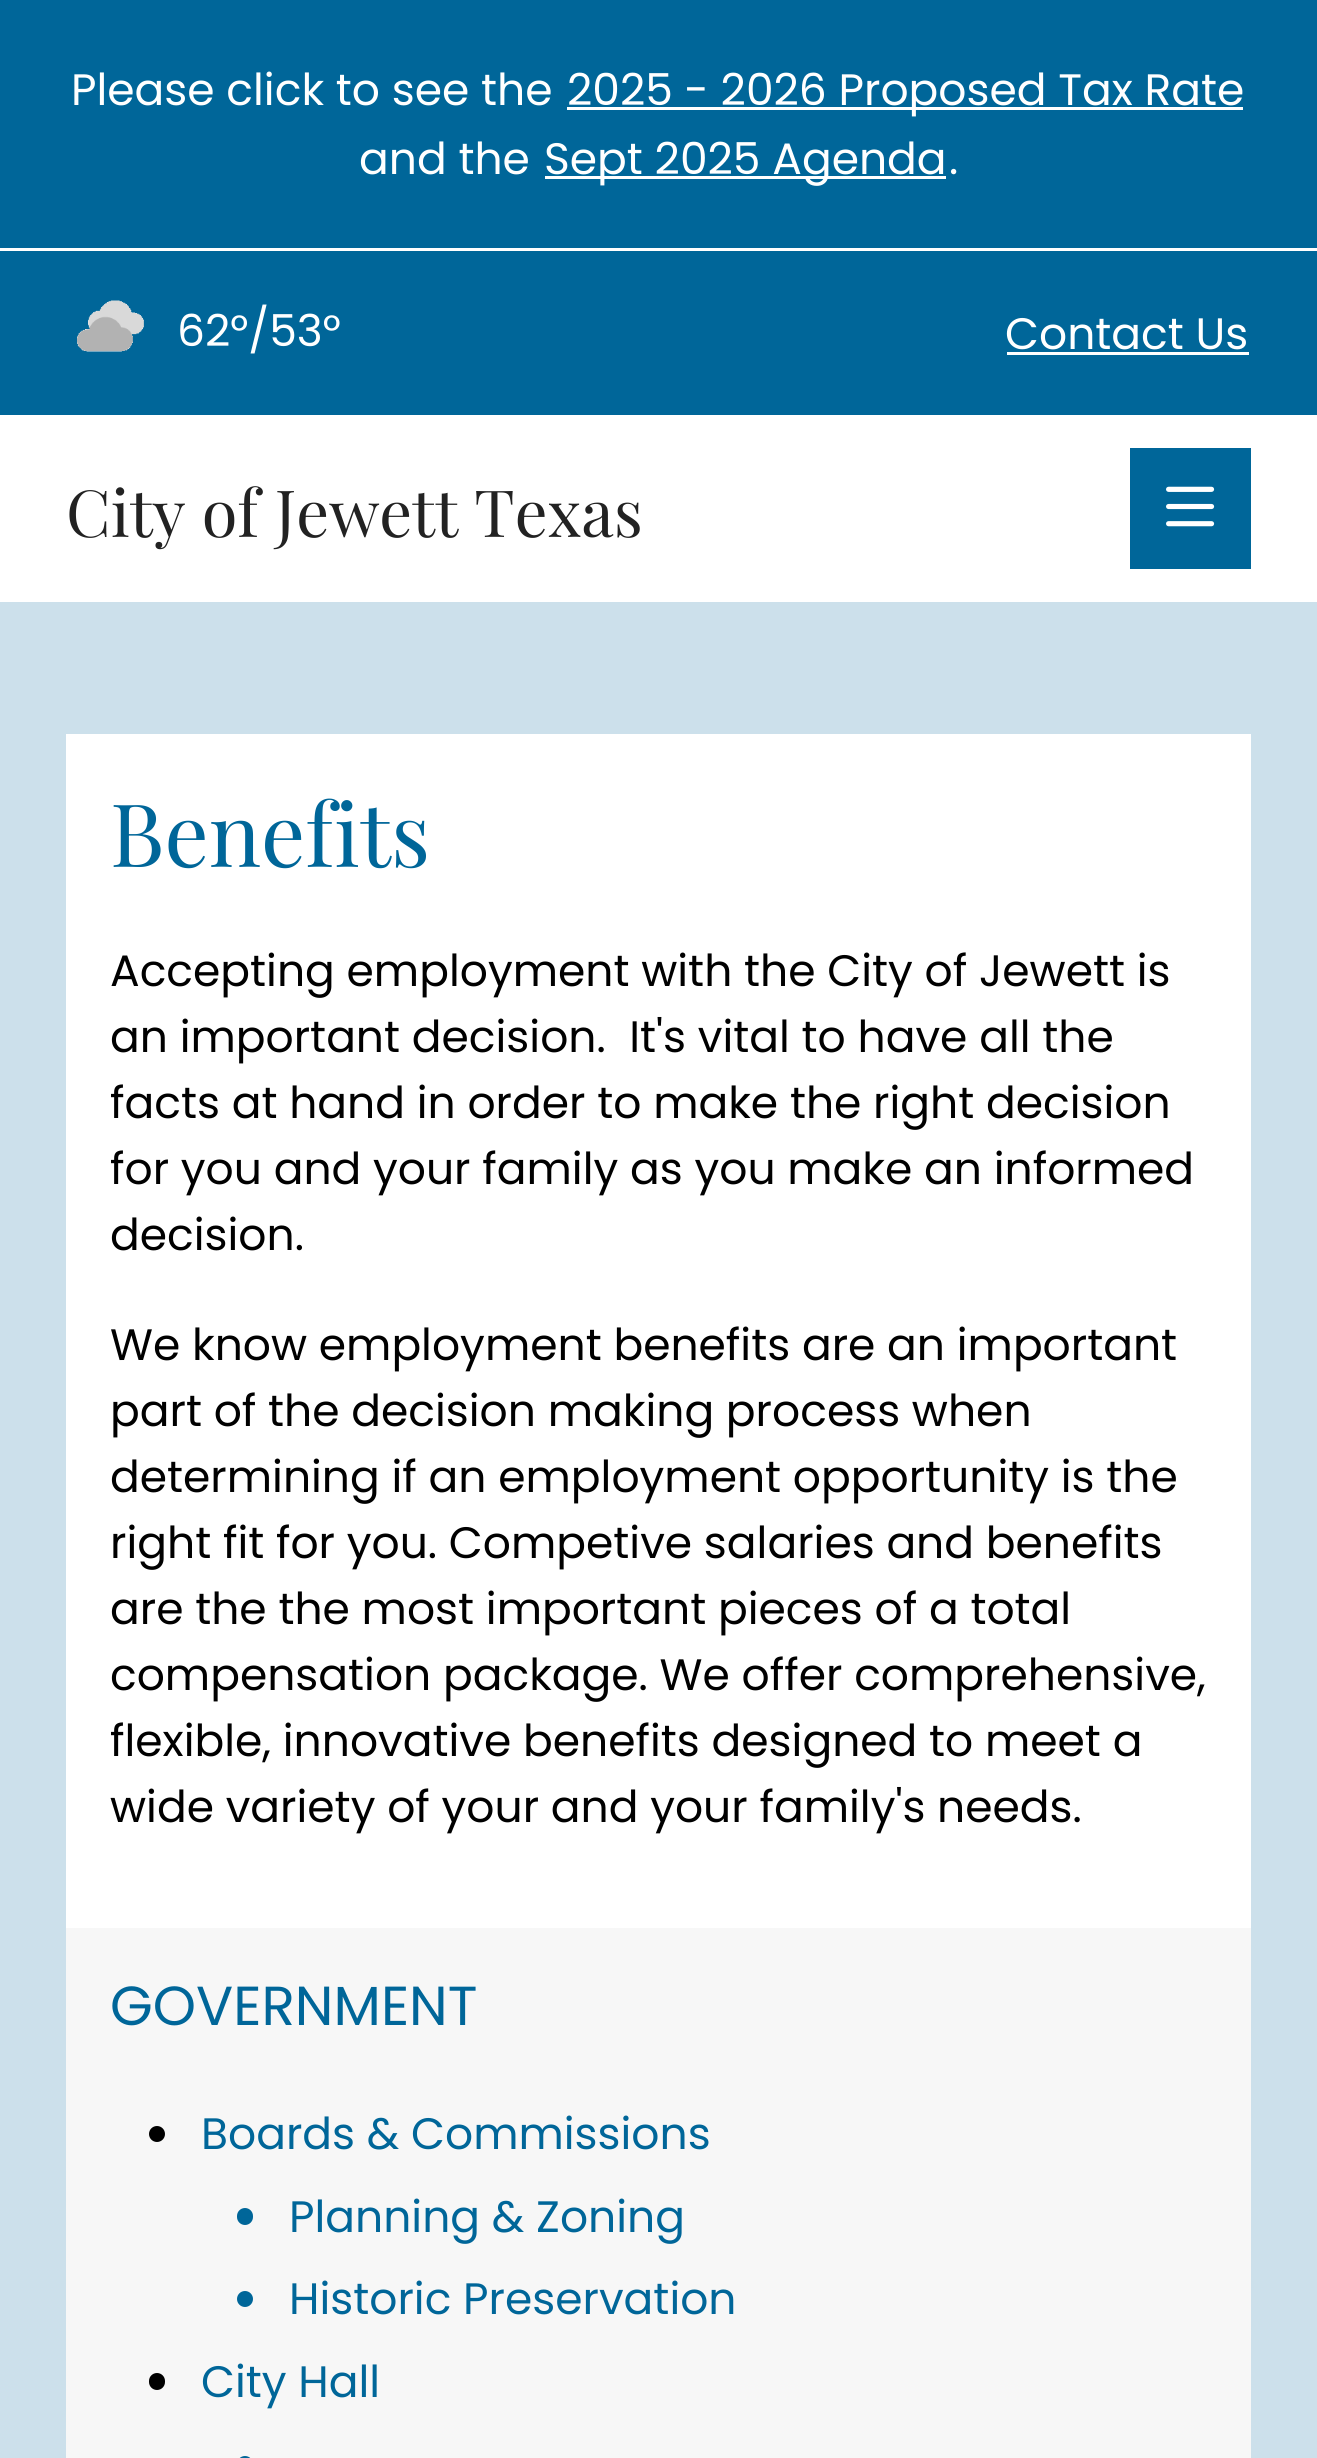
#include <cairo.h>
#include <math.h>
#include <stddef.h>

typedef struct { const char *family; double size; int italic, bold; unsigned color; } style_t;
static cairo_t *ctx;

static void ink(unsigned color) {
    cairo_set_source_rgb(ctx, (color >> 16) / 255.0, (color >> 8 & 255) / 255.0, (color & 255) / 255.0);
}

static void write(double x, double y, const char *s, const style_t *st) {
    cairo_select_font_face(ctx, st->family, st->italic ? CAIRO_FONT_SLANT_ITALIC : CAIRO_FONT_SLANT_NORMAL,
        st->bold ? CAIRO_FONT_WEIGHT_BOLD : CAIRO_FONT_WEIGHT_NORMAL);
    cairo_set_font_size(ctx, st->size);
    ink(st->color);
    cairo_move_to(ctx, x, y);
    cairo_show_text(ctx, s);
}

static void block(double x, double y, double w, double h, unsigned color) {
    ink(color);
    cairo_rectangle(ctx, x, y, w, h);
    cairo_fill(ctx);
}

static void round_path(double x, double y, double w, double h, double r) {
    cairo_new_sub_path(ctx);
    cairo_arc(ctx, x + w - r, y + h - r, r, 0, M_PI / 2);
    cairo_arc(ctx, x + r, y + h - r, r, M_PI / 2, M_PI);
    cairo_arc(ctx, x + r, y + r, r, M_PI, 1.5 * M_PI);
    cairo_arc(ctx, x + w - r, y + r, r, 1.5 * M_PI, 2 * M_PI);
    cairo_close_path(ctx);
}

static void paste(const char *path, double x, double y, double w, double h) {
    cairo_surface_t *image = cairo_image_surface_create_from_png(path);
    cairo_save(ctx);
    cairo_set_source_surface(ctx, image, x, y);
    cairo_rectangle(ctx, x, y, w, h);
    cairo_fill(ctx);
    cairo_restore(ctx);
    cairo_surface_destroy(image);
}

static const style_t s1 = {"Poppins", 44, 0, 0, 0xffffff};
static const style_t s2 = {"Playfair Display", 65, 0, 0, 0x222222};
static const style_t s3 = {"Playfair Display", 87.5, 0, 0, 0x006699};
static const style_t s4 = {"Poppins", 44, 0, 0, 0x000000};
static const style_t s5 = {"Poppins", 55, 0, 0, 0x006699};
static const style_t s6 = {"Poppins", 44, 0, 0, 0x006699};

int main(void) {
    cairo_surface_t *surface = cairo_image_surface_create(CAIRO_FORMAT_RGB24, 1317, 2458);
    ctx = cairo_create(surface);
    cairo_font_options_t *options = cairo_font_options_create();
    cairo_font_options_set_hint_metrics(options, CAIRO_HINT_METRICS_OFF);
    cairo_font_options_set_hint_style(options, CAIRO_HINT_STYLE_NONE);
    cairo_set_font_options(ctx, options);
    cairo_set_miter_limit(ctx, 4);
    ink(0xcce0eb);
    cairo_paint(ctx);
    block(0, 0, 1317, 415, 0x006699);
    block(0, 248, 1317, 3, 0xffffff);
    write(71, 105, "Please click to see the", &s1);
    block(567, 107, 676, 3, 0xffffff);
    write(567, 105, "2025 - 2026 Proposed Tax Rate", &s1);
    write(359, 174, "and the", &s1);
    block(545, 176, 401, 3, 0xffffff);
    write(544, 174, "Sept 2025 Agenda", &s1);
    write(949, 174, ".", &s1);
    paste("pic1.png", 77, 300, 67, 52);
    write(177, 346, "62°/53°", &s1);
    write(1005, 349, "Contact Us", &s1);
    block(1007, 352, 242, 3, 0xffffff);
    block(0, 415, 1317, 187, 0xffffff);
    write(66, 537, "City of Jewett Texas", &s2);
    block(1130, 448, 121, 121, 0x006699);
    paste("pic2.png", 1166, 486, 49, 41);
    block(66, 734, 1185, 1194, 0xffffff);
    write(110, 867, "Benefits", &s3);
    write(110, 986, "Accepting employment with the City of Jewett is", &s4);
    write(110, 1052, "an important decision.  It's vital to have all the", &s4);
    write(110, 1118, "facts at hand in order to make the right decision", &s4);
    write(110, 1184, "for you and your family as you make an informed", &s4);
    write(110, 1250, "decision.", &s4);
    write(110, 1360, "We know employment benefits are an important", &s4);
    write(110, 1426, "part of the decision making process when", &s4);
    write(110, 1492, "determining if an employment opportunity is the", &s4);
    write(110, 1558, "right fit for you. Competive salaries and benefits", &s4);
    write(110, 1624, "are the the most important pieces of a total", &s4);
    write(110, 1690, "compensation package. We offer comprehensive,", &s4);
    write(110, 1756, "flexible, innovative benefits designed to meet a", &s4);
    write(110, 1822, "wide variety of your and your family's needs.", &s4);
    block(66, 1928, 1185, 530, 0xf7f7f7);
    write(110, 2025, "GOVERNMENT", &s5);
    ink(0x000000);
    cairo_new_path(ctx);
    cairo_arc(ctx, 157, 2134, 8, 0, 2 * M_PI);
    cairo_fill(ctx);
    write(201, 2149, "Boards & Commissions", &s6);
    round_path(237, 2208, 16, 17, 8);
    cairo_fill(ctx);
    write(289, 2232, "Planning & Zoning", &s6);
    cairo_new_path(ctx);
    cairo_arc(ctx, 245, 2299, 8, 0, 2 * M_PI);
    cairo_fill(ctx);
    write(289, 2314, "Historic Preservation", &s6);
    ink(0x000000);
    round_path(149, 2373, 16, 17, 8);
    cairo_fill(ctx);
    write(201, 2397, "City Hall", &s6);
    round_path(237, 2456, 16, 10, 8);
    cairo_fill(ctx);
    cairo_surface_write_to_png(surface, "screenshot.png");
    cairo_font_options_destroy(options);
    cairo_destroy(ctx);
    cairo_surface_destroy(surface);
    return 0;
}
